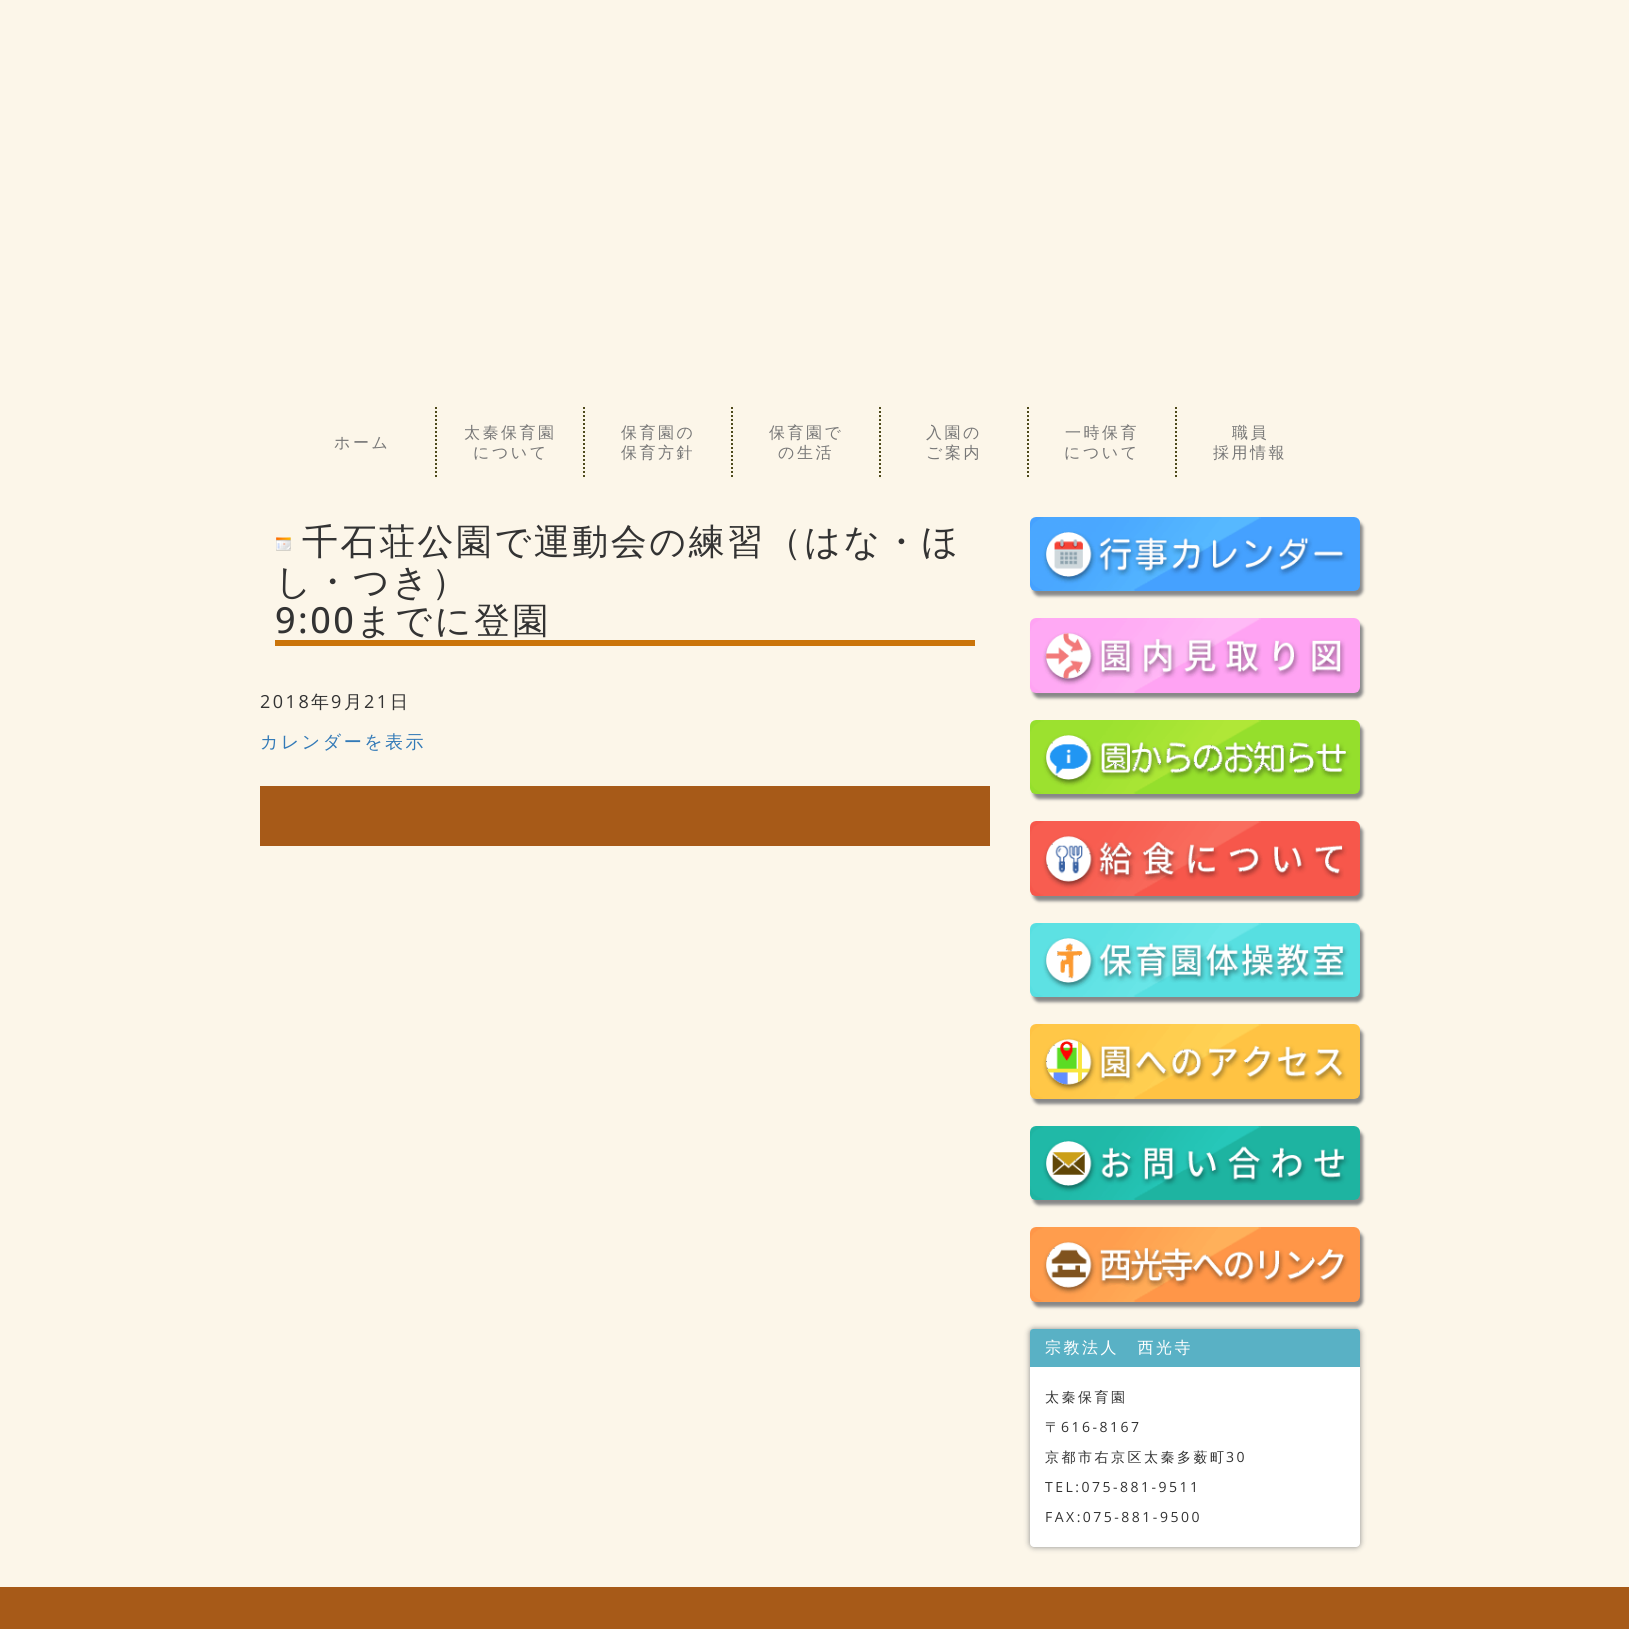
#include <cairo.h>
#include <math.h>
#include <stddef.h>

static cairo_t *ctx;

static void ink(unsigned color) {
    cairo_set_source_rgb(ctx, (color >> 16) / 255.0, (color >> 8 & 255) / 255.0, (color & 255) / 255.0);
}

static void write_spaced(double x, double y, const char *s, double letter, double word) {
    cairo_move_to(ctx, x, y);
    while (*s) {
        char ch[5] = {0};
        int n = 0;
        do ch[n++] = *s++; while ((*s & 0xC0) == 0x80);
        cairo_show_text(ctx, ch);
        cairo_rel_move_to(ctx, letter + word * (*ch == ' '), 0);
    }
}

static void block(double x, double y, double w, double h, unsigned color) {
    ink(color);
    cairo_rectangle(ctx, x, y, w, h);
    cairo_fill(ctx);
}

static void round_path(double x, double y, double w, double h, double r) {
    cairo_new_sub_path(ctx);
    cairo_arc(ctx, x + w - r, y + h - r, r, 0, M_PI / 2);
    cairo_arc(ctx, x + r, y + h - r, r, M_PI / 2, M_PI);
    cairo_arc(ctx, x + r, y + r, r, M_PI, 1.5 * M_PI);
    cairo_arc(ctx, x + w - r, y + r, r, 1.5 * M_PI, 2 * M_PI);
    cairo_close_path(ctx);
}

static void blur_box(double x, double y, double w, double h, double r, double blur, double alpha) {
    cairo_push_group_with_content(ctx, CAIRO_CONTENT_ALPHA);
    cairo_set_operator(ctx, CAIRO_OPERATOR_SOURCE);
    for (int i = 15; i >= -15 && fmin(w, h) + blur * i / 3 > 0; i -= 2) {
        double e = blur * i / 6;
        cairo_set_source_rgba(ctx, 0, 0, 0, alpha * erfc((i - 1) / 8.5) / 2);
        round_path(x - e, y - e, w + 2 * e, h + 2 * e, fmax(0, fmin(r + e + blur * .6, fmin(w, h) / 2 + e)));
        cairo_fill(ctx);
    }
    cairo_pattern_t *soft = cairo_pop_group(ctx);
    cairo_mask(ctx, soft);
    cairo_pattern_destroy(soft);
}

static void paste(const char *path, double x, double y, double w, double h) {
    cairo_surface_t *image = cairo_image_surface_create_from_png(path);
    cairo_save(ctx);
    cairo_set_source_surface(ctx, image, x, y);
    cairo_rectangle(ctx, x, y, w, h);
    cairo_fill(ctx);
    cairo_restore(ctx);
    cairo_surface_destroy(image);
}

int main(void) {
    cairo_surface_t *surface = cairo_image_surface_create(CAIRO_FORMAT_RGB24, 1629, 1629);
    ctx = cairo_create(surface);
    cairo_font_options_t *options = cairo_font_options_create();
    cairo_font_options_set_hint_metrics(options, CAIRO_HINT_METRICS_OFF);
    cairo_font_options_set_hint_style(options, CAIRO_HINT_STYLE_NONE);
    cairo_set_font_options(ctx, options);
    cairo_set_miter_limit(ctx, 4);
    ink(0xfcf6e9);
    cairo_paint(ctx);
    cairo_new_path(ctx);
    cairo_move_to(ctx, 436, 407);
    cairo_line_to(ctx, 436, 477);
    ink(0x4e4a1b);
    cairo_set_dash(ctx, (double[]){2, 2}, 2, 0);
    cairo_stroke(ctx);
    cairo_select_font_face(ctx, "WenQuanYi Zen Hei Medium", CAIRO_FONT_SLANT_NORMAL, CAIRO_FONT_WEIGHT_NORMAL);
    cairo_set_font_size(ctx, 16);
    ink(0x777777);
    write_spaced(334, 448, "ホーム", 2.5, 0);
    cairo_new_path(ctx);
    cairo_move_to(ctx, 584, 407);
    cairo_line_to(ctx, 584, 477);
    ink(0x4e4a1b);
    cairo_stroke(ctx);
    ink(0x777777);
    write_spaced(464, 438, "太秦保育園", 2.5, 0);
    write_spaced(473, 458, "について", 2.5, 0);
    cairo_new_path(ctx);
    cairo_move_to(ctx, 732, 407);
    cairo_line_to(ctx, 732, 477);
    ink(0x4e4a1b);
    cairo_stroke(ctx);
    ink(0x777777);
    write_spaced(621, 438, "保育園の", 2.5, 0);
    write_spaced(621, 458, "保育方針", 2.5, 0);
    cairo_new_path(ctx);
    cairo_move_to(ctx, 880, 407);
    cairo_line_to(ctx, 880, 477);
    ink(0x4e4a1b);
    cairo_stroke(ctx);
    ink(0x777777);
    write_spaced(769, 438, "保育園で", 2.5, 0);
    write_spaced(778, 458, "の生活", 2.5, 0);
    cairo_new_path(ctx);
    cairo_move_to(ctx, 1028, 407);
    cairo_line_to(ctx, 1028, 477);
    ink(0x4e4a1b);
    cairo_stroke(ctx);
    ink(0x777777);
    write_spaced(926, 438, "入園の", 2.5, 0);
    write_spaced(926, 458, "ご案内", 2.5, 0);
    cairo_new_path(ctx);
    cairo_move_to(ctx, 1176, 407);
    cairo_line_to(ctx, 1176, 477);
    ink(0x4e4a1b);
    cairo_stroke(ctx);
    ink(0x777777);
    write_spaced(1065, 438, "一時保育", 2.5, 0);
    write_spaced(1064, 458, "について", 2.5, 0);
    write_spaced(1232, 438, "職員", 2.5, 0);
    write_spaced(1213, 458, "採用情報", 2.5, 0);
    block(275, 640, 700, 6, 0xca740a);
    paste("pic1.png", 276, 537, 15, 14);
    cairo_set_font_size(ctx, 36);
    ink(0x333333);
    write_spaced(302, 554, "千石荘公園で運動会の練習（はな・ほ", 2.5, 0);
    write_spaced(275, 594, "し・つき）", 2.5, 0);
    cairo_select_font_face(ctx, "Open Sans Medium", CAIRO_FONT_SLANT_NORMAL, CAIRO_FONT_WEIGHT_NORMAL);
    write_spaced(275, 633, "9:00", 2.5, 0);
    cairo_select_font_face(ctx, "WenQuanYi Zen Hei Medium", CAIRO_FONT_SLANT_NORMAL, CAIRO_FONT_WEIGHT_NORMAL);
    write_spaced(356, 633, "までに登園", 2.5, 0);
    cairo_select_font_face(ctx, "Open Sans", CAIRO_FONT_SLANT_NORMAL, CAIRO_FONT_WEIGHT_NORMAL);
    cairo_set_font_size(ctx, 18);
    write_spaced(260, 708, "2018", 2.5, 0);
    cairo_select_font_face(ctx, "WenQuanYi Zen Hei Medium", CAIRO_FONT_SLANT_NORMAL, CAIRO_FONT_WEIGHT_NORMAL);
    write_spaced(311, 708, "年", 2.5, 0);
    cairo_select_font_face(ctx, "Open Sans", CAIRO_FONT_SLANT_NORMAL, CAIRO_FONT_WEIGHT_NORMAL);
    write_spaced(331, 708, "9", 2.5, 0);
    cairo_select_font_face(ctx, "WenQuanYi Zen Hei Medium", CAIRO_FONT_SLANT_NORMAL, CAIRO_FONT_WEIGHT_NORMAL);
    write_spaced(344, 708, "月", 2.5, 0);
    cairo_select_font_face(ctx, "Open Sans", CAIRO_FONT_SLANT_NORMAL, CAIRO_FONT_WEIGHT_NORMAL);
    write_spaced(364, 708, "21", 2.5, 0);
    cairo_select_font_face(ctx, "WenQuanYi Zen Hei Medium", CAIRO_FONT_SLANT_NORMAL, CAIRO_FONT_WEIGHT_NORMAL);
    write_spaced(390, 708, "日", 2.5, 0);
    ink(0x337ab7);
    write_spaced(260, 748, "カレンダーを表示", 2.5, 0);
    block(260, 786, 730, 60, 0xa75a18);
    ink(0x888888);
    blur_box(1033, 522, 330, 74, 6, 1.5, 1);
    paste("pic2.png", 1030, 517, 330, 74);
    block(1071, 651, 2, 2, 0xf7d034);
    ink(0x888888);
    blur_box(1033, 623, 330, 75, 6, 1.5, 1);
    paste("pic3.png", 1030, 618, 330, 75);
    ink(0xf7ba59);
    cairo_new_path(ctx);
    cairo_move_to(ctx, 1030, 763);
    cairo_line_to(ctx, 1030, 766);
    cairo_curve_to(ctx, 1030, 768, 1032, 770, 1034, 770);
    cairo_line_to(ctx, 1356, 770);
    cairo_curve_to(ctx, 1358, 770, 1360, 768, 1360, 766);
    cairo_line_to(ctx, 1360, 763);
    cairo_curve_to(ctx, 1360, 765, 1358, 767, 1356, 767);
    cairo_line_to(ctx, 1034, 767);
    cairo_curve_to(ctx, 1032, 767, 1030, 765, 1030, 763);
    cairo_close_path(ctx);
    cairo_fill(ctx);
    block(1051, 743, 287, 24, 0xf7d034);
    ink(0x888888);
    blur_box(1033, 725, 330, 74, 6, 1.5, 1);
    paste("pic4.png", 1030, 720, 330, 74);
    ink(0xf7ba59);
    cairo_new_path(ctx);
    cairo_move_to(ctx, 1030, 864);
    cairo_line_to(ctx, 1030, 867);
    cairo_curve_to(ctx, 1030, 869, 1032, 871, 1034, 871);
    cairo_line_to(ctx, 1356, 871);
    cairo_curve_to(ctx, 1358, 871, 1360, 869, 1360, 867);
    cairo_line_to(ctx, 1360, 864);
    cairo_curve_to(ctx, 1360, 866, 1358, 868, 1356, 868);
    cairo_line_to(ctx, 1034, 868);
    cairo_curve_to(ctx, 1032, 868, 1030, 866, 1030, 864);
    cairo_close_path(ctx);
    cairo_fill(ctx);
    block(1047, 844, 287, 24, 0xf7d034);
    ink(0x888888);
    blur_box(1033, 826, 330, 75, 6, 1.5, 1);
    paste("pic5.png", 1030, 821, 330, 75);
    block(1057, 949, 23, 12, 0xf7d034);
    ink(0x888888);
    blur_box(1033, 928, 330, 74, 6, 1.5, 1);
    paste("pic6.png", 1030, 923, 330, 74);
    ink(0xf7ba59);
    cairo_new_path(ctx);
    cairo_move_to(ctx, 1030, 1067);
    cairo_line_to(ctx, 1030, 1070);
    cairo_curve_to(ctx, 1030, 1072, 1032, 1074, 1034, 1074);
    cairo_line_to(ctx, 1356, 1074);
    cairo_curve_to(ctx, 1358, 1074, 1360, 1072, 1360, 1070);
    cairo_line_to(ctx, 1360, 1067);
    cairo_curve_to(ctx, 1360, 1069, 1358, 1071, 1356, 1071);
    cairo_line_to(ctx, 1034, 1071);
    cairo_curve_to(ctx, 1032, 1071, 1030, 1069, 1030, 1067);
    cairo_close_path(ctx);
    cairo_fill(ctx);
    block(1046, 1048, 274, 23, 0xf7d034);
    ink(0x888888);
    blur_box(1033, 1029, 330, 75, 6, 1.5, 1);
    paste("pic7.png", 1030, 1024, 330, 75);
    block(1057, 1152, 28, 15, 0xf7d034);
    ink(0x888888);
    blur_box(1033, 1131, 330, 74, 6, 1.5, 1);
    paste("pic8.png", 1030, 1126, 330, 74);
    ink(0xf7ba59);
    cairo_new_path(ctx);
    cairo_move_to(ctx, 1030, 1270);
    cairo_line_to(ctx, 1030, 1273);
    cairo_curve_to(ctx, 1030, 1275, 1032, 1277, 1034, 1277);
    cairo_line_to(ctx, 1356, 1277);
    cairo_curve_to(ctx, 1358, 1277, 1360, 1275, 1360, 1273);
    cairo_line_to(ctx, 1360, 1270);
    cairo_curve_to(ctx, 1360, 1272, 1358, 1274, 1356, 1274);
    cairo_line_to(ctx, 1034, 1274);
    cairo_curve_to(ctx, 1032, 1274, 1030, 1272, 1030, 1270);
    cairo_close_path(ctx);
    cairo_fill(ctx);
    block(1048, 1250, 264, 23, 0xf7d034);
    ink(0x888888);
    blur_box(1033, 1232, 330, 75, 6, 1.5, 1);
    paste("pic9.png", 1030, 1227, 330, 75);
    blur_box(1030, 1329, 330, 218, 4, 3, 1);
    ink(0xffffff);
    round_path(1030, 1329, 330, 218, 4);
    cairo_fill(ctx);
    ink(0x59b1c5);
    cairo_new_path(ctx);
    cairo_move_to(ctx, 1033, 1329);
    cairo_line_to(ctx, 1357, 1329);
    cairo_curve_to(ctx, 1358.5, 1329, 1360, 1330.5, 1360, 1332);
    cairo_line_to(ctx, 1360, 1367);
    cairo_line_to(ctx, 1030, 1367);
    cairo_line_to(ctx, 1030, 1332);
    cairo_curve_to(ctx, 1030, 1330.5, 1031.5, 1329, 1033, 1329);
    cairo_close_path(ctx);
    cairo_fill(ctx);
    cairo_set_font_size(ctx, 16);
    ink(0xffffff);
    write_spaced(1045, 1353, "宗教法人　西光寺", 2.5, 0);
    cairo_set_font_size(ctx, 14);
    ink(0x333333);
    write_spaced(1045, 1402, "太秦保育園", 2.5, 0);
    write_spaced(1045, 1432, "〒", 2.5, 0);
    cairo_select_font_face(ctx, "Open Sans", CAIRO_FONT_SLANT_NORMAL, CAIRO_FONT_WEIGHT_NORMAL);
    write_spaced(1061, 1432, "616-8167", 2.5, 0);
    cairo_select_font_face(ctx, "WenQuanYi Zen Hei Medium", CAIRO_FONT_SLANT_NORMAL, CAIRO_FONT_WEIGHT_NORMAL);
    write_spaced(1045, 1462, "京都市右京区太秦多薮町", 2.5, 0);
    cairo_select_font_face(ctx, "Open Sans", CAIRO_FONT_SLANT_NORMAL, CAIRO_FONT_WEIGHT_NORMAL);
    write_spaced(1226, 1462, "30", 2.5, 0);
    write_spaced(1045, 1492, "TEL:075-881-9511", 2.5, 0);
    write_spaced(1045, 1522, "FAX:075-881-9500", 2.5, 0);
    block(0, 1587, 1629, 42, 0xa75a18);
    cairo_surface_write_to_png(surface, "screenshot.png");
    cairo_font_options_destroy(options);
    cairo_destroy(ctx);
    cairo_surface_destroy(surface);
    return 0;
}
